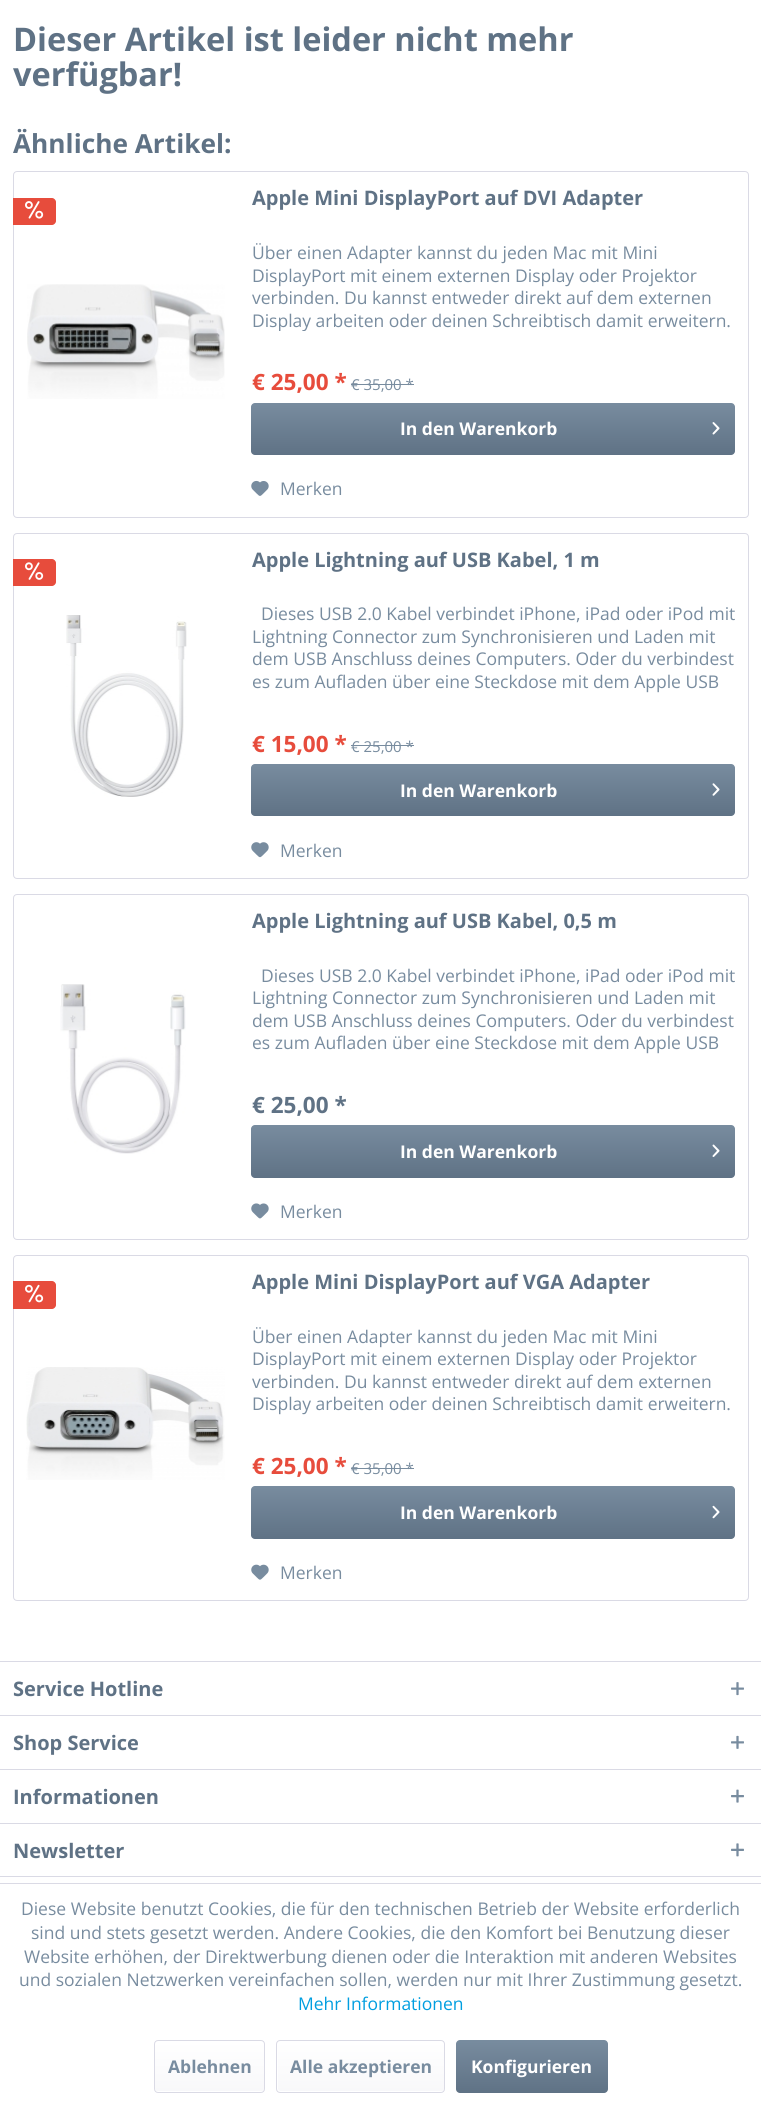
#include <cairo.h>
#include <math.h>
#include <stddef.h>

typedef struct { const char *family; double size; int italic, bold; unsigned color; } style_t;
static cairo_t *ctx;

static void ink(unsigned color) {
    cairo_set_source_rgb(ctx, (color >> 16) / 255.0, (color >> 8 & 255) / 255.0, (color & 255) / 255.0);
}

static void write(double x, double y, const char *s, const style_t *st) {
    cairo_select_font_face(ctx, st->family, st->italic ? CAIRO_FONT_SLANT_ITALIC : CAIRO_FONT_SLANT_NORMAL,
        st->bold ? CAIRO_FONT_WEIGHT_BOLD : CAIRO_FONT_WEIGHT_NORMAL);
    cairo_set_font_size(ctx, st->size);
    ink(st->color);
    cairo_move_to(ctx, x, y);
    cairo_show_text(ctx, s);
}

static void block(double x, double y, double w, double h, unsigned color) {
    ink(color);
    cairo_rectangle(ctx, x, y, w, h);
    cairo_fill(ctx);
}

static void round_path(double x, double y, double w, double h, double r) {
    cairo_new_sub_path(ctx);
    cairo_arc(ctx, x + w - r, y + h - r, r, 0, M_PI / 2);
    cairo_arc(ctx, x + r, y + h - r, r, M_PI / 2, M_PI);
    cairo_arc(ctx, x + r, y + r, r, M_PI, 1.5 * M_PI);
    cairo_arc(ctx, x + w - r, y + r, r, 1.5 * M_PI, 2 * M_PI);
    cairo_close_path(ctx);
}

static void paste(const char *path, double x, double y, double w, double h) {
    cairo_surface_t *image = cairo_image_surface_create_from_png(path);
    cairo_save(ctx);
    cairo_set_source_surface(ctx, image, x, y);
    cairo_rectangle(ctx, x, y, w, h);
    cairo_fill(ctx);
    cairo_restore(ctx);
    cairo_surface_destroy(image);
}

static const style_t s1 = {"Open Sans", 32.5, 0, 1, 0x5f7285};
static const style_t s2 = {"Open Sans", 26.25, 0, 1, 0x5f7285};
static const style_t s3 = {"Open Sans", 20, 0, 1, 0x5f7285};
static const style_t s4 = {"Open Sans", 17.5, 0, 0, 0x788c9f};
static const style_t s5 = {"Open Sans", 22.5, 0, 1, 0xe74c3c};
static const style_t s6 = {"Open Sans", 15, 0, 0, 0x788c9f};
static const style_t s7 = {"Open Sans", 17.5, 0, 1, 0xffffff};
static const style_t s8 = {"Open Sans", 22.5, 0, 1, 0x5f7285};
static const style_t s9 = {"Open Sans", 17.5, 0, 0, 0x009ee0};
static const style_t s10 = {"Open Sans", 17.5, 0, 1, 0x788c9f};

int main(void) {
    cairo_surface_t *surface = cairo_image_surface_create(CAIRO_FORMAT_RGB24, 761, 2104);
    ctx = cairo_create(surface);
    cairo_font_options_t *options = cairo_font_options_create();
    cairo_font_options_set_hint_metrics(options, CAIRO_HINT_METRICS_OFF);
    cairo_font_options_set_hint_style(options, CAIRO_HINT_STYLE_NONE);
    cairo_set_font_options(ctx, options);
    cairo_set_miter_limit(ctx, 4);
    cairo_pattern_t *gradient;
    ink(0xffffff);
    cairo_paint(ctx);
    write(13, 51, "Dieser Artikel ist leider nicht mehr", &s1);
    write(13, 86, "verfügbar!", &s1);
    write(13, 153, "Ähnliche Artikel:", &s2);
    round_path(13.5, 171.5, 735, 346, 3.5);
    ink(0xdadae5);
    cairo_set_line_width(ctx, 1);
    cairo_stroke(ctx);
    ink(0xe74c3c);
    cairo_new_path(ctx);
    cairo_move_to(ctx, 13, 198);
    cairo_line_to(ctx, 52, 198);
    cairo_curve_to(ctx, 54, 198, 56, 200, 56, 202);
    cairo_line_to(ctx, 56, 221);
    cairo_curve_to(ctx, 56, 223, 54, 225, 52, 225);
    cairo_line_to(ctx, 13, 225);
    cairo_close_path(ctx);
    cairo_fill(ctx);
    paste("pic1.png", 25, 201, 19, 18);
    write(252, 205, "Apple Mini DisplayPort auf DVI Adapter", &s3);
    paste("pic2.png", 27, 284, 198, 115);
    write(252, 259, "Über einen Adapter kannst du jeden Mac mit Mini", &s4);
    write(252, 282, "DisplayPort mit einem externen Display oder Projektor", &s4);
    write(252, 304, "verbinden. Du kannst entweder direkt auf dem externen", &s4);
    cairo_save(ctx);
    cairo_rectangle(ctx, 251, 241, 484, 90);
    cairo_clip(ctx);
    write(252, 327, "Display arbeiten oder deinen Schreibtisch damit erweitern.", &s4);
    cairo_restore(ctx);
    write(252, 390, "€ 25,00 *", &s5);
    write(351, 390, "€ 35,00 *", &s6);
    block(351, 384, 63, 1, 0x788c9f);
    gradient = cairo_pattern_create_linear(493, 403, 493, 455);
    cairo_pattern_add_color_stop_rgba(gradient, 0, 0.471, 0.549, 0.624, 1);
    cairo_pattern_add_color_stop_rgba(gradient, 1, 0.373, 0.447, 0.522, 1);
    cairo_set_source(ctx, gradient);
    cairo_pattern_destroy(gradient);
    round_path(251, 403, 484, 52, 4);
    cairo_fill(ctx);
    write(400, 435, "In den Warenkorb", &s7);
    paste("pic3.png", 712, 422, 8, 13);
    paste("pic4.png", 251, 480, 18, 16);
    write(280, 495, "Merken", &s4);
    round_path(13.5, 533.5, 735, 345, 3.5);
    ink(0xdadae5);
    cairo_stroke(ctx);
    ink(0xe74c3c);
    cairo_new_path(ctx);
    cairo_move_to(ctx, 13, 559);
    cairo_line_to(ctx, 52, 559);
    cairo_curve_to(ctx, 54, 559, 56, 561, 56, 563);
    cairo_line_to(ctx, 56, 582);
    cairo_curve_to(ctx, 56, 584, 54, 586, 52, 586);
    cairo_line_to(ctx, 13, 586);
    cairo_close_path(ctx);
    cairo_fill(ctx);
    paste("pic5.png", 25, 562, 19, 18);
    write(252, 567, "Apple Lightning auf USB Kabel, 1 m", &s3);
    paste("pic6.png", 66, 615, 121, 182);
    write(261, 620, "Dieses USB 2.0 Kabel verbindet iPhone, iPad oder iPod mit", &s4);
    write(252, 643, "Lightning Connector zum Synchronisieren und Laden mit", &s4);
    write(252, 665, "dem USB Anschluss deines Computers. Oder du verbindest", &s4);
    write(252, 688, "es zum Aufladen über eine Steckdose mit dem Apple USB", &s4);
    write(252, 752, "€ 15,00 *", &s5);
    write(351, 752, "€ 25,00 *", &s6);
    block(351, 745, 63, 1, 0x788c9f);
    gradient = cairo_pattern_create_linear(493, 764, 493, 816);
    cairo_pattern_add_color_stop_rgba(gradient, 0, 0.471, 0.549, 0.624, 1);
    cairo_pattern_add_color_stop_rgba(gradient, 1, 0.373, 0.447, 0.522, 1);
    cairo_set_source(ctx, gradient);
    cairo_pattern_destroy(gradient);
    round_path(251, 764, 484, 52, 4);
    cairo_fill(ctx);
    write(400, 797, "In den Warenkorb", &s7);
    paste("pic7.png", 712, 783, 8, 13);
    paste("pic8.png", 251, 842, 18, 16);
    write(280, 857, "Merken", &s4);
    round_path(13.5, 894.5, 735, 345, 3.5);
    ink(0xdadae5);
    cairo_stroke(ctx);
    write(252, 928, "Apple Lightning auf USB Kabel, 0,5 m", &s3);
    paste("pic9.png", 60, 984, 126, 170);
    write(261, 982, "Dieses USB 2.0 Kabel verbindet iPhone, iPad oder iPod mit", &s4);
    write(252, 1004, "Lightning Connector zum Synchronisieren und Laden mit", &s4);
    write(252, 1027, "dem USB Anschluss deines Computers. Oder du verbindest", &s4);
    write(252, 1049, "es zum Aufladen über eine Steckdose mit dem Apple USB", &s4);
    write(252, 1113, "€ 25,00 *", &s8);
    gradient = cairo_pattern_create_linear(493, 1125, 493, 1178);
    cairo_pattern_add_color_stop_rgba(gradient, 0, 0.471, 0.549, 0.624, 1);
    cairo_pattern_add_color_stop_rgba(gradient, 1, 0.373, 0.447, 0.522, 1);
    cairo_set_source(ctx, gradient);
    cairo_pattern_destroy(gradient);
    round_path(251, 1125, 484, 53, 4);
    cairo_fill(ctx);
    write(400, 1158, "In den Warenkorb", &s7);
    paste("pic10.png", 712, 1144, 8, 13);
    paste("pic11.png", 251, 1203, 18, 16);
    write(280, 1218, "Merken", &s4);
    round_path(13.5, 1255.5, 735, 345, 3.5);
    ink(0xdadae5);
    cairo_stroke(ctx);
    ink(0xe74c3c);
    cairo_new_path(ctx);
    cairo_move_to(ctx, 13, 1281);
    cairo_line_to(ctx, 52, 1281);
    cairo_curve_to(ctx, 54, 1281, 56, 1283, 56, 1285);
    cairo_line_to(ctx, 56, 1305);
    cairo_curve_to(ctx, 56, 1307, 54, 1309, 52, 1309);
    cairo_line_to(ctx, 13, 1309);
    cairo_close_path(ctx);
    cairo_fill(ctx);
    paste("pic12.png", 25, 1284, 19, 19);
    write(252, 1289, "Apple Mini DisplayPort auf VGA Adapter", &s3);
    paste("pic13.png", 26, 1367, 199, 113);
    write(252, 1343, "Über einen Adapter kannst du jeden Mac mit Mini", &s4);
    write(252, 1365, "DisplayPort mit einem externen Display oder Projektor", &s4);
    write(252, 1388, "verbinden. Du kannst entweder direkt auf dem externen", &s4);
    write(252, 1410, "Display arbeiten oder deinen Schreibtisch damit erweitern.", &s4);
    write(252, 1474, "€ 25,00 *", &s5);
    write(351, 1474, "€ 35,00 *", &s6);
    block(351, 1468, 63, 1, 0x788c9f);
    gradient = cairo_pattern_create_linear(493, 1486, 493, 1539);
    cairo_pattern_add_color_stop_rgba(gradient, 0, 0.471, 0.549, 0.624, 1);
    cairo_pattern_add_color_stop_rgba(gradient, 1, 0.373, 0.447, 0.522, 1);
    cairo_set_source(ctx, gradient);
    cairo_pattern_destroy(gradient);
    round_path(251, 1486, 484, 53, 4);
    cairo_fill(ctx);
    write(400, 1519, "In den Warenkorb", &s7);
    paste("pic14.png", 712, 1505, 8, 14);
    paste("pic15.png", 251, 1564, 18, 16);
    write(280, 1579, "Merken", &s4);
    block(0, 1661, 761, 1, 0xdadae5);
    write(13, 1696, "Service Hotline", &s3);
    paste("pic16.png", 731, 1682, 13, 14);
    block(0, 1715, 761, 1, 0xdadae5);
    write(13, 1750, "Shop Service", &s3);
    paste("pic17.png", 731, 1735, 13, 14);
    block(0, 1769, 761, 1, 0xdadae5);
    write(13, 1804, "Informationen", &s3);
    paste("pic18.png", 731, 1789, 13, 14);
    block(0, 1823, 761, 1, 0xdadae5);
    block(0, 1876, 761, 1, 0xdadae5);
    write(13, 1858, "Newsletter", &s3);
    paste("pic19.png", 731, 1843, 13, 14);
    block(0, 1883, 761, 1, 0xdadae5);
    write(21, 1915, "Diese Website benutzt Cookies, die für den technischen Betrieb der Website erforderlich", &s4);
    write(31, 1939, "sind und stets gesetzt werden. Andere Cookies, die den Komfort bei Benutzung dieser", &s4);
    write(24, 1963, "Website erhöhen, der Direktwerbung dienen oder die Interaktion mit anderen Websites", &s4);
    write(19, 1986, "und sozialen Netzwerken vereinfachen sollen, werden nur mit Ihrer Zustimmung gesetzt.", &s4);
    write(298, 2010, "Mehr Informationen", &s9);
    gradient = cairo_pattern_create_linear(209, 2041, 209, 2091);
    cairo_pattern_add_color_stop_rgba(gradient, 0, 1, 1, 1, 1);
    cairo_pattern_add_color_stop_rgba(gradient, 1, 0.973, 0.973, 0.98, 1);
    cairo_set_source(ctx, gradient);
    cairo_pattern_destroy(gradient);
    round_path(155, 2041, 109, 50, 2.5);
    cairo_fill(ctx);
    round_path(154.5, 2040.5, 110, 52, 3.5);
    ink(0xdadae5);
    cairo_stroke(ctx);
    write(168, 2073, "Ablehnen", &s10);
    gradient = cairo_pattern_create_linear(361, 2041, 361, 2091);
    cairo_pattern_add_color_stop_rgba(gradient, 0, 1, 1, 1, 1);
    cairo_pattern_add_color_stop_rgba(gradient, 1, 0.973, 0.973, 0.98, 1);
    cairo_set_source(ctx, gradient);
    cairo_pattern_destroy(gradient);
    round_path(278, 2041, 166, 50, 2.5);
    cairo_fill(ctx);
    round_path(276.5, 2040.5, 168, 52, 3.5);
    ink(0xdadae5);
    cairo_stroke(ctx);
    write(290, 2073, "Alle akzeptieren", &s10);
    gradient = cairo_pattern_create_linear(532, 2040, 532, 2093);
    cairo_pattern_add_color_stop_rgba(gradient, 0, 0.471, 0.549, 0.624, 1);
    cairo_pattern_add_color_stop_rgba(gradient, 1, 0.373, 0.447, 0.522, 1);
    cairo_set_source(ctx, gradient);
    cairo_pattern_destroy(gradient);
    round_path(456, 2040, 152, 53, 4);
    cairo_fill(ctx);
    write(471, 2073, "Konfigurieren", &s7);
    cairo_surface_write_to_png(surface, "screenshot.png");
    cairo_font_options_destroy(options);
    cairo_destroy(ctx);
    cairo_surface_destroy(surface);
    return 0;
}
